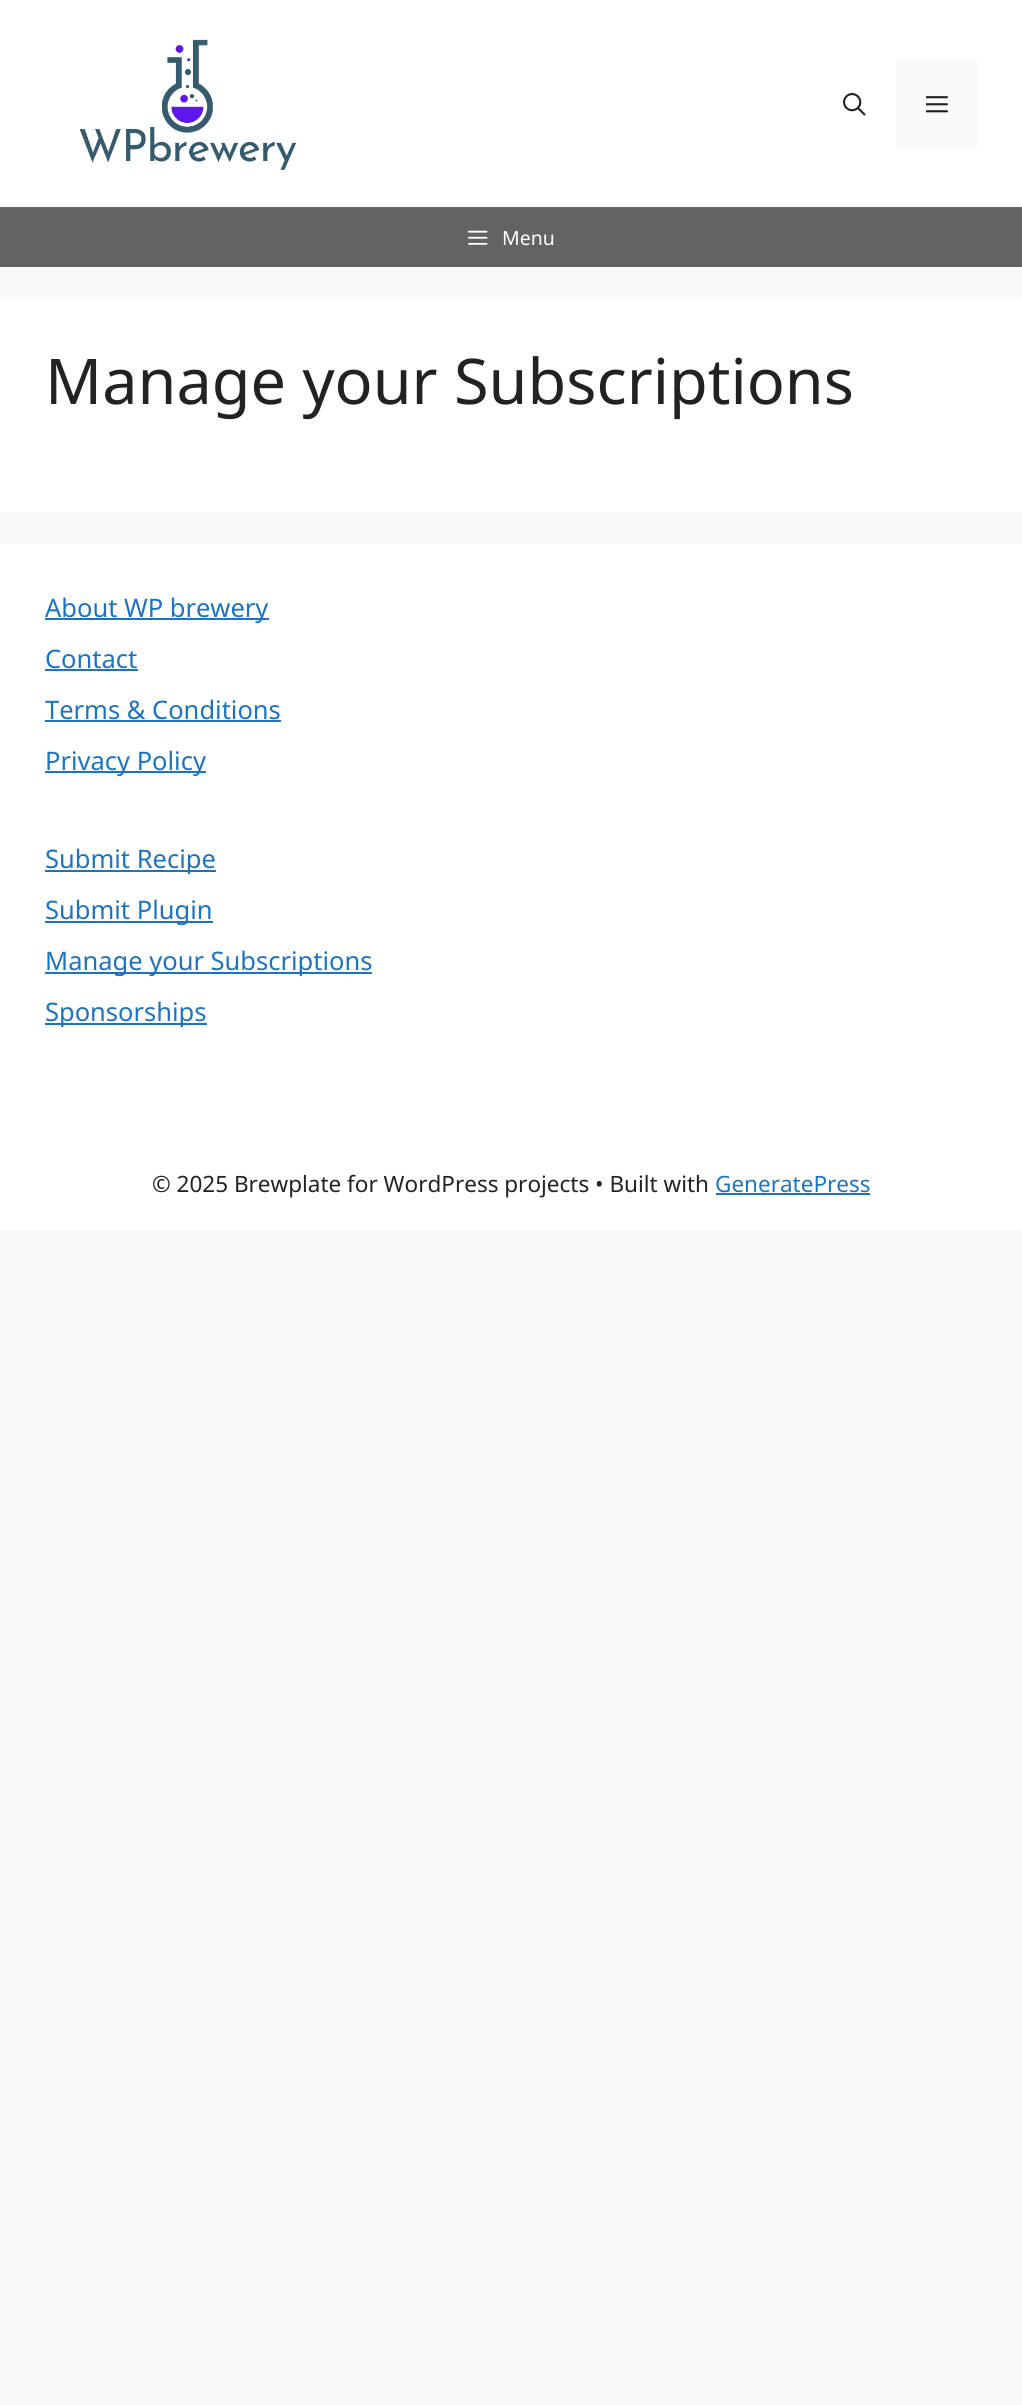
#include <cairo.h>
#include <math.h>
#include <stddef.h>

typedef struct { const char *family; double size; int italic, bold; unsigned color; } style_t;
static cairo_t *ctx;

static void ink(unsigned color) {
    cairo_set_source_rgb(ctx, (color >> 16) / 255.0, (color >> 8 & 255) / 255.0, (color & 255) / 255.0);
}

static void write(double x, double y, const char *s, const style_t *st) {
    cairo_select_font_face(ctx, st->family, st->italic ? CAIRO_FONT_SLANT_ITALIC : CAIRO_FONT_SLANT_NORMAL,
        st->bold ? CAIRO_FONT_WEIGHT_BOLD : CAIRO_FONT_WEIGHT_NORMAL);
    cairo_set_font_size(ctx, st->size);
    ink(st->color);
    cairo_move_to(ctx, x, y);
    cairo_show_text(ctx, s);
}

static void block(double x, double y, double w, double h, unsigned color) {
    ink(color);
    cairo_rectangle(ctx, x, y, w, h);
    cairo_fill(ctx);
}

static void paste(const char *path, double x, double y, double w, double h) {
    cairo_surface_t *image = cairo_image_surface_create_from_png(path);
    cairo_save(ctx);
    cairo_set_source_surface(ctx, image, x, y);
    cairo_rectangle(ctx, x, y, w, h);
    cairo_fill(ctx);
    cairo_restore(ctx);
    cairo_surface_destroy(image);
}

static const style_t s1 = {"Noto Sans", 19.5, 0, 0, 0xffffff};
static const style_t s2 = {"Noto Sans", 63, 0, 0, 0x222222};
static const style_t s3 = {"Noto Sans", 25.5, 0, 0, 0x1e73be};
static const style_t s4 = {"Noto Sans", 22.5, 0, 0, 0x222222};
static const style_t s5 = {"Noto Sans", 22.5, 0, 0, 0x1e73be};

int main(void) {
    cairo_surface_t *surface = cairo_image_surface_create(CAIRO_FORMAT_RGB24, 1022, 2405);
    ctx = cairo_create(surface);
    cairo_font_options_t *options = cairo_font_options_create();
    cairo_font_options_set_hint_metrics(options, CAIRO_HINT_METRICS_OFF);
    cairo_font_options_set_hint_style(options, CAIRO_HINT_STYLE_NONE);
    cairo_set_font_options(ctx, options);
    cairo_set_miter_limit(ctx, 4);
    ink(0xf9f9f9);
    cairo_paint(ctx);
    block(0, 0, 1022, 207, 0xffffff);
    paste("pic1.png", 80, 39, 217, 131);
    paste("pic2.png", 843, 93, 23, 23);
    block(896, 59, 82, 90, 0xfafafa);
    paste("pic3.png", 926, 96, 22, 17);
    block(0, 207, 1022, 60, 0x636363);
    paste("pic4.png", 468, 230, 20, 15);
    write(502, 245, "Menu", &s1);
    block(0, 297, 1022, 216, 0xffffff);
    write(45, 404, "Manage your Subscriptions", &s2);
    block(0, 543, 1022, 687, 0xffffff);
    block(45, 618, 224, 2, 0x1e73be);
    write(45, 617, "About WP brewery", &s3);
    write(45, 668, "Contact", &s3);
    block(45, 669, 93, 2, 0x1e73be);
    write(45, 719, "Terms & Conditions", &s3);
    block(45, 720, 236, 2, 0x1e73be);
    block(45, 771, 161, 2, 0x1e73be);
    write(45, 770, "Privacy Policy", &s3);
    block(45, 870, 171, 2, 0x1e73be);
    write(45, 868, "Submit Recipe", &s3);
    block(45, 921, 168, 2, 0x1e73be);
    write(45, 919, "Submit Plugin", &s3);
    block(45, 972, 327, 2, 0x1e73be);
    write(45, 970, "Manage your Subscriptions", &s3);
    block(45, 1023, 162, 2, 0x1e73be);
    write(45, 1021, "Sponsorships", &s3);
    write(152, 1192, "© 2025 Brewplate for WordPress projects • Built with", &s4);
    write(715, 1192, "GeneratePress", &s5);
    block(716, 1193, 154, 2, 0x1e73be);
    cairo_surface_write_to_png(surface, "screenshot.png");
    cairo_font_options_destroy(options);
    cairo_destroy(ctx);
    cairo_surface_destroy(surface);
    return 0;
}
